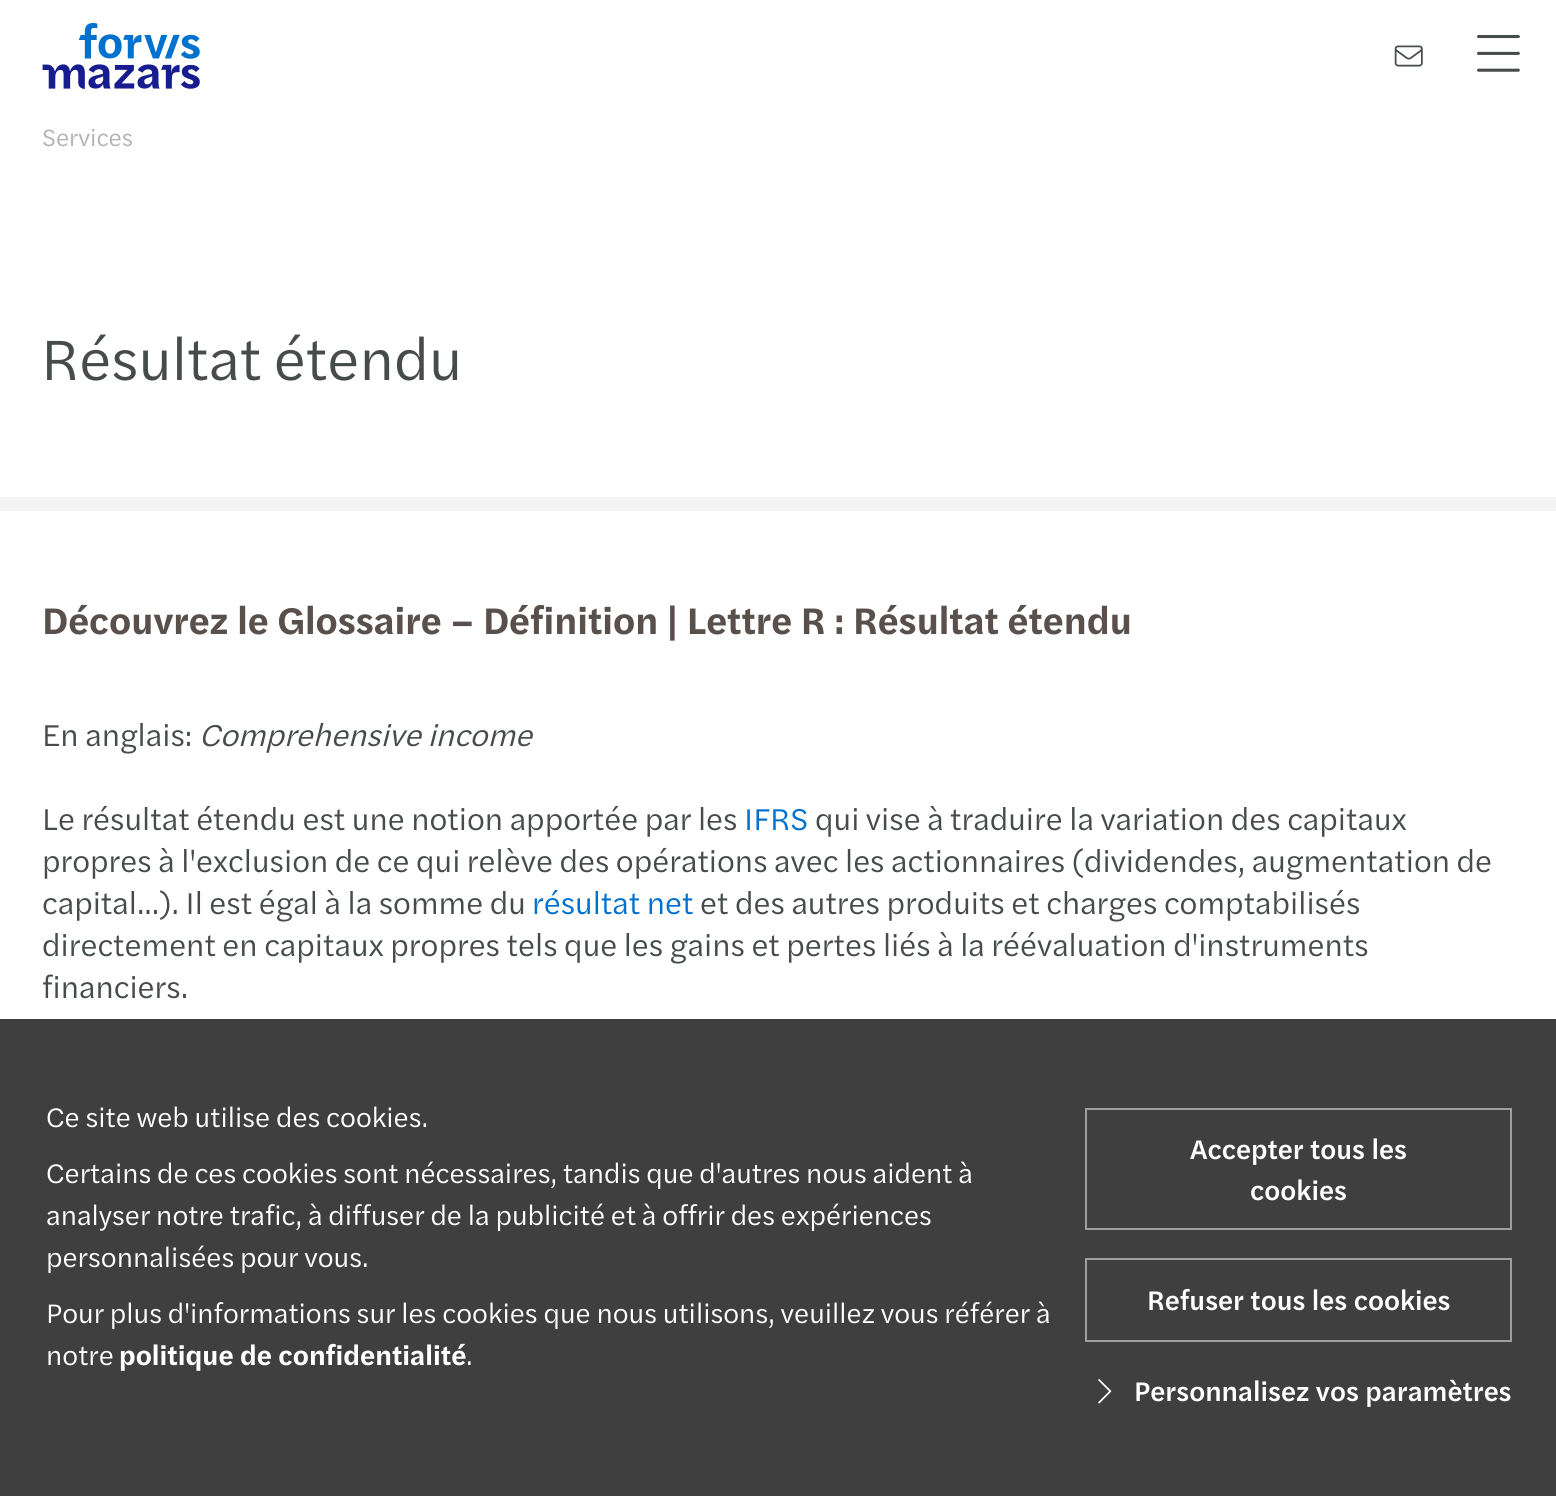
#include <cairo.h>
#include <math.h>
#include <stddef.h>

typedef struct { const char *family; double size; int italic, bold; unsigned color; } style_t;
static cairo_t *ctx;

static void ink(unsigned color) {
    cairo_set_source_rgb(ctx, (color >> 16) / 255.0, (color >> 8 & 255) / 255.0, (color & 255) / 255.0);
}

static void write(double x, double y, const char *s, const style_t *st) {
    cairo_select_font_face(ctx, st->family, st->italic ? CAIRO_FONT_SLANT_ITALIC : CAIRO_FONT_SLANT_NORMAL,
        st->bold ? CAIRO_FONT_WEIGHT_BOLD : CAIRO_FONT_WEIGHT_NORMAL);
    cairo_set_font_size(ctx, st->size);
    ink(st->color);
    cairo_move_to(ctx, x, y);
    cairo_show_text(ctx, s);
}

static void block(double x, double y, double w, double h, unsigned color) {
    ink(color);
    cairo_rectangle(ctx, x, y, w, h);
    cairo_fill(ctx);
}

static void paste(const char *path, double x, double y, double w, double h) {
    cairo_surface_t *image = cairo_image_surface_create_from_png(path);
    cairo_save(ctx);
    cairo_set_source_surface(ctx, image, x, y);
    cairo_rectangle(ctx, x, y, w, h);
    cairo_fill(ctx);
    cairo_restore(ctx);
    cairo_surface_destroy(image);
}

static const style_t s1 = {"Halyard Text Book", 24.5, 0, 0, 0xb1b3b3};
static const style_t s2 = {"Halyard Text Book", 59.5, 0, 0, 0x464b4b};
static const style_t s3 = {"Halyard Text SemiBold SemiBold", 38.5, 0, 0, 0x59504c};
static const style_t s4 = {"Halyard Text Book", 31.5, 0, 0, 0x464b4b};
static const style_t s5 = {"Halyard Text Book", 31.5, 1, 0, 0x464b4b};
static const style_t s6 = {"Halyard Text Book", 31.5, 0, 0, 0x0072ce};
static const style_t s7 = {"Halyard Text Book", 28, 0, 0, 0xffffff};
static const style_t s8 = {"Halyard Text SemiBold SemiBold", 28, 0, 0, 0xffffff};
static const style_t s9 = {"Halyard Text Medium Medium", 28, 0, 0, 0xffffff};

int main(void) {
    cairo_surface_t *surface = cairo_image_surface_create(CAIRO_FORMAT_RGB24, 1556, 1496);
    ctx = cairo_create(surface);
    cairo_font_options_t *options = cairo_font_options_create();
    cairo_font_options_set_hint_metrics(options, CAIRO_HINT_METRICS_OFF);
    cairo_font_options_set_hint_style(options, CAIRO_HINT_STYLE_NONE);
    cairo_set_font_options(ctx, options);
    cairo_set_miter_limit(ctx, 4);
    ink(0xffffff);
    cairo_paint(ctx);
    paste("pic1.png", 42, 23, 158, 66);
    paste("pic2.png", 1394, 45, 29, 22);
    paste("pic3.png", 1477, 35, 43, 37);
    write(42, 146, "Services", &s1);
    write(41, 380, "Résultat étendu", &s2);
    block(0, 497, 1556, 14, 0xf4f4f4);
    write(42, 634, "Découvrez le Glossaire – Définition | Lettre R : Résultat étendu", &s3);
    write(42, 746, "En anglais:", &s4);
    write(199, 746, "Comprehensive income", &s5);
    write(42, 830, "Le résultat étendu est une notion apportée par les", &s4);
    write(744, 830, "IFRS", &s6);
    write(815, 830, "qui vise à traduire la variation des capitaux", &s4);
    write(42, 872, "propres à l'exclusion de ce qui relève des opérations avec les actionnaires (dividendes, augmentation de", &s4);
    write(42, 914, "capital...). Il est égal à la somme du", &s4);
    write(532, 914, "résultat net", &s6);
    write(700, 914, "et des autres produits et charges comptabilisés", &s4);
    write(42, 956, "directement en capitaux propres tels que les gains et pertes liés à la réévaluation d'instruments", &s4);
    write(42, 998, "financiers.", &s4);
    block(0, 1019, 1556, 477, 0x3f3f3f);
    write(46, 1127, "Ce site web utilise des cookies.", &s7);
    write(46, 1183, "Certains de ces cookies sont nécessaires, tandis que d'autres nous aident à", &s7);
    write(46, 1225, "analyser notre trafic, à diffuser de la publicité et à offrir des expériences", &s7);
    write(46, 1267, "personnalisées pour vous.", &s7);
    write(46, 1323, "Pour plus d'informations sur les cookies que nous utilisons, veuillez vous référer à", &s7);
    write(46, 1365, "notre", &s7);
    write(119, 1365, "politique de confidentialité", &s8);
    write(466, 1365, ".", &s7);
    cairo_rectangle(ctx, 1086, 1109, 425, 120);
    ink(0x9f9f9f);
    cairo_stroke(ctx);
    write(1190, 1159, "Accepter tous les", &s9);
    write(1250, 1200, "cookies", &s9);
    cairo_rectangle(ctx, 1086, 1259, 425, 82);
    ink(0x9f9f9f);
    cairo_stroke(ctx);
    write(1147, 1310, "Refuser tous les cookies", &s9);
    paste("pic4.png", 1098, 1379, 14, 25);
    write(1134, 1401, "Personnalisez vos paramètres", &s9);
    cairo_surface_write_to_png(surface, "screenshot.png");
    cairo_font_options_destroy(options);
    cairo_destroy(ctx);
    cairo_surface_destroy(surface);
    return 0;
}
